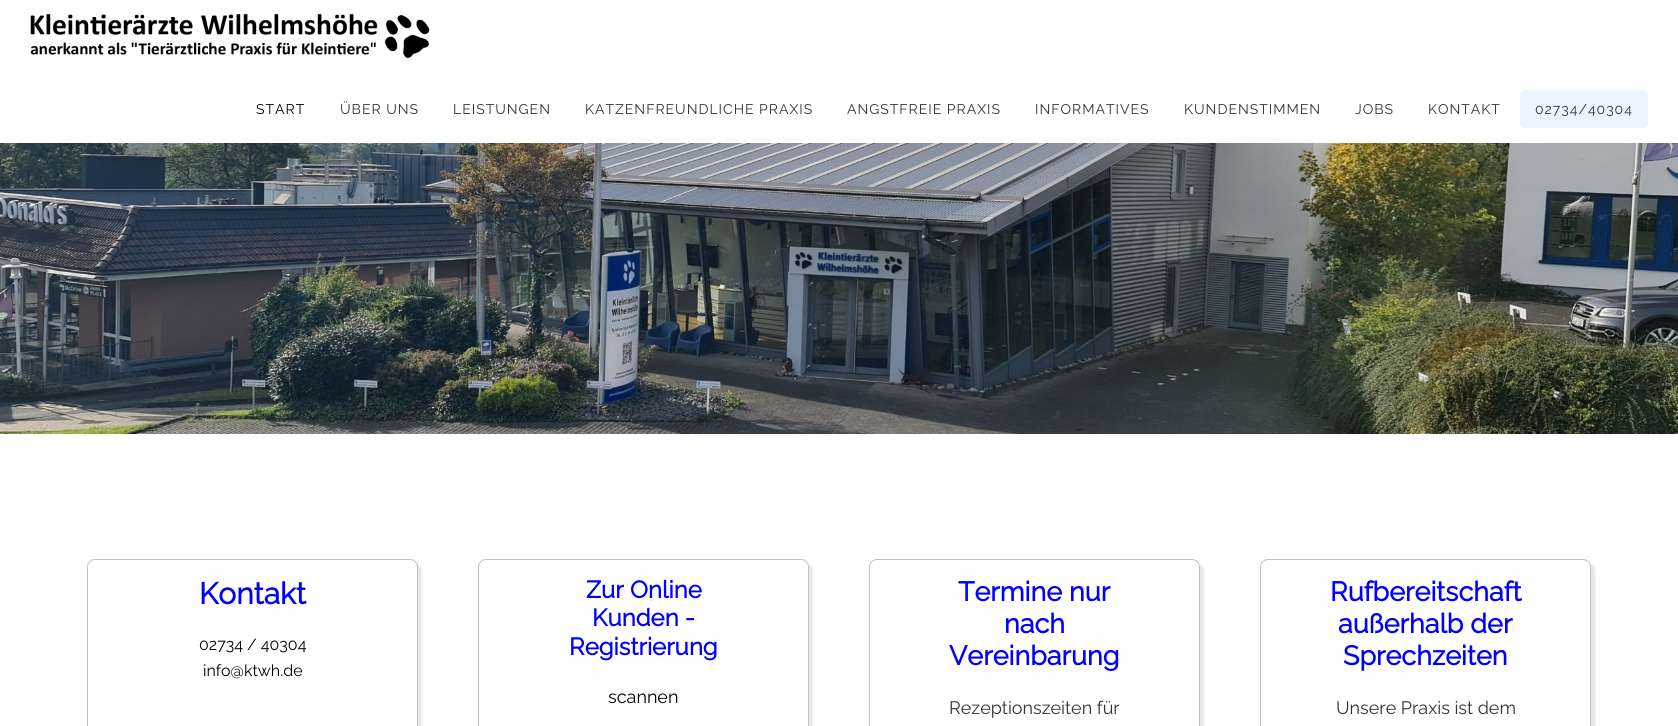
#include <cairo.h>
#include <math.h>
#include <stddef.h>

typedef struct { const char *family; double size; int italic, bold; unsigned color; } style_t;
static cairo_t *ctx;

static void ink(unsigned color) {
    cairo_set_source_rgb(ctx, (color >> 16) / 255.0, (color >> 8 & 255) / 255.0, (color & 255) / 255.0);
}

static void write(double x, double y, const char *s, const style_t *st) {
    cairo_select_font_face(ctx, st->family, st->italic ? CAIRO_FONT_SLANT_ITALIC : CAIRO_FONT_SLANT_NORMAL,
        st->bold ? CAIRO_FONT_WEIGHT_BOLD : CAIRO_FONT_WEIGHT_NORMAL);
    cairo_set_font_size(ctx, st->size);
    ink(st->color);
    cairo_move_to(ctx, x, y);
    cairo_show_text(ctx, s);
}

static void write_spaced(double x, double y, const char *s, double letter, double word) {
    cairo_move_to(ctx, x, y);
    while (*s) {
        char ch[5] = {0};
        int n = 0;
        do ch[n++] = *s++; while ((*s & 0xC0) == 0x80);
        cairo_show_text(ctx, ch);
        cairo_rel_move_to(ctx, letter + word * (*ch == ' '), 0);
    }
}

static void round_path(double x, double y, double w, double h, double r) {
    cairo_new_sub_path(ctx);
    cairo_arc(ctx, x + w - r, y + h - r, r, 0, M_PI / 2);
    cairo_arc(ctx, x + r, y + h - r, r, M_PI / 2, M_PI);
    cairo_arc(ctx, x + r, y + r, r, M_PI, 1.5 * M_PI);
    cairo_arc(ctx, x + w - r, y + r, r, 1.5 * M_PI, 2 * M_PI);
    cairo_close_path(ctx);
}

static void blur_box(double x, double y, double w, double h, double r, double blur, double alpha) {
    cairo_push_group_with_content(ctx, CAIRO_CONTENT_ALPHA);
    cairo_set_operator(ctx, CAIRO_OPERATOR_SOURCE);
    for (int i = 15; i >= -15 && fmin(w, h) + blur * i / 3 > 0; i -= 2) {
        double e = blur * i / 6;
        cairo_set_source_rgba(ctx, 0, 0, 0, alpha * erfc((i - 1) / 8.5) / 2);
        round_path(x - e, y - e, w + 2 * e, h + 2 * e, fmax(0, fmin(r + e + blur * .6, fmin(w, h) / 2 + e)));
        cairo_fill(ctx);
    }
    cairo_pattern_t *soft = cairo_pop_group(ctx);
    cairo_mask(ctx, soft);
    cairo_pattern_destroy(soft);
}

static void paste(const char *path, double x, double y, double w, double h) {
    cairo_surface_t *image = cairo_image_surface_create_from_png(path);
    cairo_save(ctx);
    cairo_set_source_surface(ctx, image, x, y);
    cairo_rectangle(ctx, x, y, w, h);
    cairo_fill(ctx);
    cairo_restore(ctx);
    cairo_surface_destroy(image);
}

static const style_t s1 = {"Raleway", 30, 0, 1, 0x0000ff};
static const style_t s2 = {"Raleway Thin", 16, 0, 0, 0x000000};
static const style_t s3 = {"Raleway", 24, 0, 1, 0x0000ff};
static const style_t s4 = {"Raleway Thin", 18, 0, 0, 0x000000};
static const style_t s5 = {"Raleway", 27, 0, 1, 0x0000ff};
static const style_t s6 = {"Raleway Thin", 18, 0, 0, 0x333333};

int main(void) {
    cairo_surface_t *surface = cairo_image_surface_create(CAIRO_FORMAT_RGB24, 1678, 726);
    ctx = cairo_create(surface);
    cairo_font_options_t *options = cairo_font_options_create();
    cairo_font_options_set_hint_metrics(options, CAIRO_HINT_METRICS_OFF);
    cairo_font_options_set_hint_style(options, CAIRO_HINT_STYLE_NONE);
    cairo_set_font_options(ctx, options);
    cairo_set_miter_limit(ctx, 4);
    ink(0xffffff);
    cairo_paint(ctx);
    paste("pic1.png", 30, 13, 400, 45);
    cairo_select_font_face(ctx, "Raleway Thin", CAIRO_FONT_SLANT_NORMAL, CAIRO_FONT_WEIGHT_NORMAL);
    cairo_set_font_size(ctx, 14);
    ink(0x000000);
    write_spaced(256, 114, "START", 1, 0);
    ink(0x333333);
    write_spaced(340, 114, "ÜBER UNS", 1, 0);
    write_spaced(453, 114, "LEISTUNGEN", 1, 0);
    write_spaced(585, 114, "KATZENFREUNDLICHE PRAXIS", 1, 0);
    write_spaced(847, 114, "ANGSTFREIE PRAXIS", 1, 0);
    write_spaced(1035, 114, "INFORMATIVES", 1, 0);
    write_spaced(1184, 114, "KUNDENSTIMMEN", 1, 0);
    write_spaced(1355, 114, "JOBS", 1, 0);
    write_spaced(1428, 114, "KONTAKT", 1, 0);
    ink(0xecf5ff);
    round_path(1520, 90, 128, 38, 5);
    cairo_fill(ctx);
    ink(0x333333);
    write_spaced(1535, 114, "02734/40304", 1, 0);
    paste("pic2.png", 0, 143, 1678, 291);
    cairo_save(ctx);
    cairo_set_fill_rule(ctx, CAIRO_FILL_RULE_EVEN_ODD);
    cairo_new_path(ctx);
    cairo_move_to(ctx, 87, 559);
    cairo_line_to(ctx, 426, 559);
    cairo_line_to(ctx, 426, 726);
    cairo_line_to(ctx, 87, 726);
    cairo_close_path(ctx);
    cairo_move_to(ctx, 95, 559);
    cairo_line_to(ctx, 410, 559);
    cairo_curve_to(ctx, 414.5, 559, 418, 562.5, 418, 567);
    cairo_line_to(ctx, 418, 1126);
    cairo_curve_to(ctx, 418, 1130.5, 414.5, 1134, 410, 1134);
    cairo_line_to(ctx, 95, 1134);
    cairo_curve_to(ctx, 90.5, 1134, 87, 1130.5, 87, 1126);
    cairo_line_to(ctx, 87, 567);
    cairo_curve_to(ctx, 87, 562.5, 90.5, 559, 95, 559);
    cairo_close_path(ctx);
    cairo_clip(ctx);
    ink(0xd6d6d6);
    blur_box(91, 563, 331, 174, 8, 1, 0.59);
    cairo_restore(ctx);
    cairo_set_source_rgba(ctx, 1, 1, 1, 0.85);
    round_path(87.5, 559.5, 330, 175, 7.5);
    cairo_fill_preserve(ctx);
    ink(0xc2c1c0);
    cairo_set_line_width(ctx, 1);
    cairo_stroke(ctx);
    write(199, 604, "Kontakt", &s1);
    write(199, 650, "02734 / 40304", &s2);
    write(203, 676, "info@ktwh.de", &s2);
    cairo_save(ctx);
    cairo_set_fill_rule(ctx, CAIRO_FILL_RULE_EVEN_ODD);
    cairo_new_path(ctx);
    cairo_move_to(ctx, 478, 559);
    cairo_line_to(ctx, 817, 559);
    cairo_line_to(ctx, 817, 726);
    cairo_line_to(ctx, 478, 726);
    cairo_close_path(ctx);
    cairo_move_to(ctx, 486, 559);
    cairo_line_to(ctx, 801, 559);
    cairo_curve_to(ctx, 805.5, 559, 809, 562.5, 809, 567);
    cairo_line_to(ctx, 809, 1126);
    cairo_curve_to(ctx, 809, 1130.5, 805.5, 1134, 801, 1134);
    cairo_line_to(ctx, 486, 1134);
    cairo_curve_to(ctx, 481.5, 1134, 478, 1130.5, 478, 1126);
    cairo_line_to(ctx, 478, 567);
    cairo_curve_to(ctx, 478, 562.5, 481.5, 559, 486, 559);
    cairo_close_path(ctx);
    cairo_clip(ctx);
    ink(0xd6d6d6);
    blur_box(482, 563, 331, 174, 8, 1, 0.59);
    cairo_restore(ctx);
    cairo_set_source_rgba(ctx, 1, 1, 1, 0.85);
    round_path(478.5, 559.5, 330, 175, 7.5);
    cairo_fill_preserve(ctx);
    ink(0xc2c1c0);
    cairo_stroke(ctx);
    write(586, 598, "Zur Online", &s3);
    write(592, 626, "Kunden -", &s3);
    write(569, 655, "Registrierung", &s3);
    write(608, 703, "scannen", &s4);
    cairo_save(ctx);
    cairo_set_fill_rule(ctx, CAIRO_FILL_RULE_EVEN_ODD);
    cairo_new_path(ctx);
    cairo_move_to(ctx, 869, 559);
    cairo_line_to(ctx, 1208, 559);
    cairo_line_to(ctx, 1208, 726);
    cairo_line_to(ctx, 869, 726);
    cairo_close_path(ctx);
    cairo_move_to(ctx, 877, 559);
    cairo_line_to(ctx, 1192, 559);
    cairo_curve_to(ctx, 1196.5, 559, 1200, 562.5, 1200, 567);
    cairo_line_to(ctx, 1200, 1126);
    cairo_curve_to(ctx, 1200, 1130.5, 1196.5, 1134, 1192, 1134);
    cairo_line_to(ctx, 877, 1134);
    cairo_curve_to(ctx, 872.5, 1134, 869, 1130.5, 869, 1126);
    cairo_line_to(ctx, 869, 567);
    cairo_curve_to(ctx, 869, 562.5, 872.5, 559, 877, 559);
    cairo_close_path(ctx);
    cairo_clip(ctx);
    ink(0xd6d6d6);
    blur_box(873, 563, 331, 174, 8, 1, 0.59);
    cairo_restore(ctx);
    cairo_set_source_rgba(ctx, 1, 1, 1, 0.85);
    round_path(869.5, 559.5, 330, 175, 7.5);
    cairo_fill_preserve(ctx);
    ink(0xc2c1c0);
    cairo_stroke(ctx);
    write(958, 601, "Termine nur", &s5);
    write(1004, 633, "nach", &s5);
    write(949, 665, "Vereinbarung", &s5);
    write(949, 714, "Rezeptionszeiten für", &s6);
    cairo_save(ctx);
    cairo_set_fill_rule(ctx, CAIRO_FILL_RULE_EVEN_ODD);
    cairo_new_path(ctx);
    cairo_move_to(ctx, 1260, 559);
    cairo_line_to(ctx, 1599, 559);
    cairo_line_to(ctx, 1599, 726);
    cairo_line_to(ctx, 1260, 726);
    cairo_close_path(ctx);
    cairo_move_to(ctx, 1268, 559);
    cairo_line_to(ctx, 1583, 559);
    cairo_curve_to(ctx, 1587.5, 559, 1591, 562.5, 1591, 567);
    cairo_line_to(ctx, 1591, 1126);
    cairo_curve_to(ctx, 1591, 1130.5, 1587.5, 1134, 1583, 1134);
    cairo_line_to(ctx, 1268, 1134);
    cairo_curve_to(ctx, 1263.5, 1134, 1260, 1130.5, 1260, 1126);
    cairo_line_to(ctx, 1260, 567);
    cairo_curve_to(ctx, 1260, 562.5, 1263.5, 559, 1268, 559);
    cairo_close_path(ctx);
    cairo_clip(ctx);
    ink(0xd6d6d6);
    blur_box(1264, 563, 331, 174, 8, 1, 0.59);
    cairo_restore(ctx);
    cairo_set_source_rgba(ctx, 1, 1, 1, 0.85);
    round_path(1260.5, 559.5, 330, 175, 7.5);
    cairo_fill_preserve(ctx);
    ink(0xc2c1c0);
    cairo_stroke(ctx);
    write(1330, 601, "Rufbereitschaft", &s5);
    write(1338, 633, "außerhalb der", &s5);
    write(1343, 665, "Sprechzeiten", &s5);
    write(1336, 714, "Unsere Praxis ist dem", &s6);
    cairo_surface_write_to_png(surface, "screenshot.png");
    cairo_font_options_destroy(options);
    cairo_destroy(ctx);
    cairo_surface_destroy(surface);
    return 0;
}
